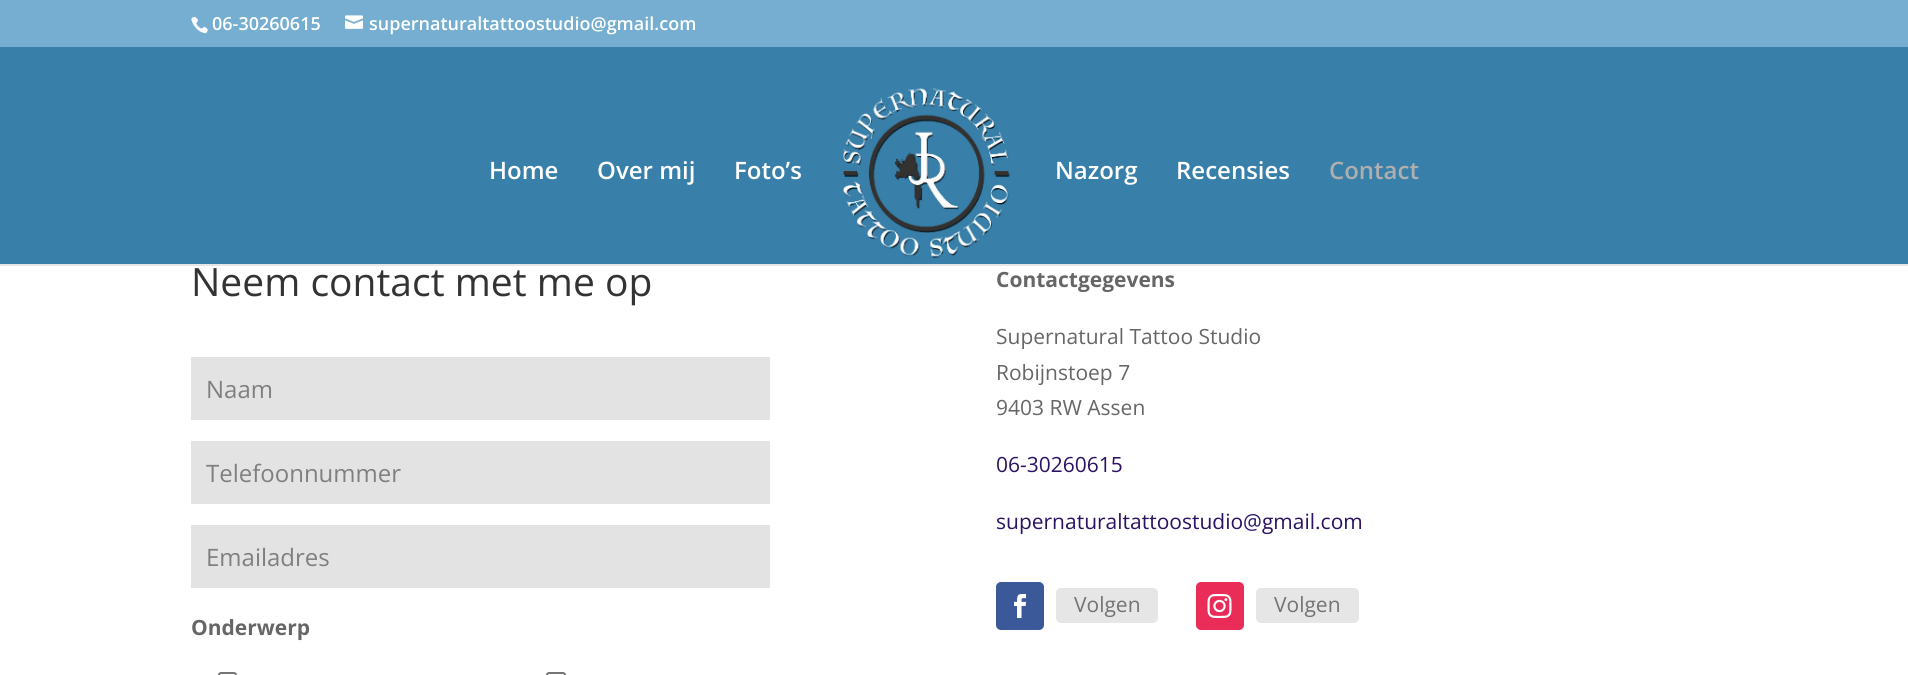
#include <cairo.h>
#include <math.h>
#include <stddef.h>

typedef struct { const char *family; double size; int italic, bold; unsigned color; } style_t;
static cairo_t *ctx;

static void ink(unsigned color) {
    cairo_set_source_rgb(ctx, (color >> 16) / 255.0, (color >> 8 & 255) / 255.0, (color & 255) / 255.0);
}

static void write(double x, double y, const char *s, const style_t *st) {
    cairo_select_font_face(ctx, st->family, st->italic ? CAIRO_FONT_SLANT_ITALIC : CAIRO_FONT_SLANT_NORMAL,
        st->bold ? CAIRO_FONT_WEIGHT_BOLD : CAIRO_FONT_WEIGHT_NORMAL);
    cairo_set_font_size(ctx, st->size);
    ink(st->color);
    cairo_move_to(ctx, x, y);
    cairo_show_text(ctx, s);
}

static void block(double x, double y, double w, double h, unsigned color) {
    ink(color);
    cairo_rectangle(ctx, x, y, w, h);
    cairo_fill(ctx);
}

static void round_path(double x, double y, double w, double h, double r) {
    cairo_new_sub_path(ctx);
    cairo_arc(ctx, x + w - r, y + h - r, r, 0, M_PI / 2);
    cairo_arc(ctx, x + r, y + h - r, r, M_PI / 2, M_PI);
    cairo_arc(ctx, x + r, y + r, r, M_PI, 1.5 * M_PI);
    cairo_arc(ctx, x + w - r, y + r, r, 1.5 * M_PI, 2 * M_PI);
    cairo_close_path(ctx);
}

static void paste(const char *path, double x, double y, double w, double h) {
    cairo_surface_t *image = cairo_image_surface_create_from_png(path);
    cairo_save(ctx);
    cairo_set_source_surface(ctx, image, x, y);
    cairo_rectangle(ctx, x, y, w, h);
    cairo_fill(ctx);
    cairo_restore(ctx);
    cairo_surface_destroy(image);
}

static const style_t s1 = {"Open Sans SemiBold", 18, 0, 0, 0xffffff};
static const style_t s2 = {"Open Sans SemiBold", 24, 0, 0, 0xffffff};
static const style_t s3 = {"Open Sans SemiBold", 24, 0, 0, 0xafafaf};
static const style_t s4 = {"Open Sans", 39, 0, 0, 0x333333};
static const style_t s5 = {"Open Sans", 24, 0, 0, 0x7f7f7f};
static const style_t s6 = {"Open Sans", 21, 0, 1, 0x666666};
static const style_t s7 = {"Open Sans", 21, 0, 0, 0x666666};
static const style_t s8 = {"Open Sans", 21, 0, 0, 0x2c1263};
static const style_t s9 = {"Open Sans", 21, 0, 0, 0x737373};

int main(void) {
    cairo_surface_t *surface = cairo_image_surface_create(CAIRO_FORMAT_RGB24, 1908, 675);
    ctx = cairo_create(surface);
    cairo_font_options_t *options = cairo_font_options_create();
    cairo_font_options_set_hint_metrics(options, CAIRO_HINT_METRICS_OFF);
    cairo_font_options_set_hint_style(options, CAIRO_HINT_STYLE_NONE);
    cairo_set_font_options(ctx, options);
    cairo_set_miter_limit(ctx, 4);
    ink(0xffffff);
    cairo_paint(ctx);
    block(0, 0, 1908, 47, 0x75aed0);
    paste("pic1.png", 191, 16, 17, 18);
    write(212, 30, "06-30260615", &s1);
    paste("pic2.png", 345, 15, 18, 14);
    write(369, 30, "supernaturaltattoostudio@gmail.com", &s1);
    block(0, 264, 1908, 2, 0xe6e6e6);
    block(0, 47, 1908, 217, 0x387fa9);
    write(489, 179, "Home", &s2);
    write(597, 179, "Over mij", &s2);
    write(734, 179, "Foto’s", &s2);
    paste("pic3.png", 843, 88, 168, 171);
    write(1055, 179, "Nazorg", &s2);
    write(1176, 179, "Recensies", &s2);
    write(1329, 179, "Contact", &s3);
    write(191, 296, "Neem contact met me op", &s4);
    block(191, 357, 579, 63, 0xe3e3e3);
    write(206, 398, "Naam", &s5);
    block(191, 441, 579, 63, 0xe3e3e3);
    write(206, 482, "Telefoonnummer", &s5);
    block(191, 525, 579, 63, 0xe3e3e3);
    write(206, 566, "Emailadres", &s5);
    write(191, 635, "Onderwerp", &s6);
    round_path(219, 673, 17, 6, 2);
    ink(0x767676);
    cairo_stroke(ctx);
    round_path(547, 673, 18, 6, 2);
    cairo_stroke(ctx);
    write(996, 287, "Contactgegevens", &s6);
    write(996, 344, "Supernatural Tattoo Studio", &s7);
    write(996, 380, "Robijnstoep 7", &s7);
    write(996, 415, "9403 RW Assen", &s7);
    write(996, 472, "06-30260615", &s8);
    write(996, 529, "supernaturaltattoostudio@gmail.com", &s8);
    ink(0x3b5998);
    round_path(996, 582, 48, 48, 5);
    cairo_fill(ctx);
    paste("pic4.png", 1014, 594, 13, 24);
    ink(0xe6e6e6);
    round_path(1056, 588, 102, 35, 5);
    cairo_fill(ctx);
    write(1074, 612, "Volgen", &s9);
    ink(0xea2c59);
    round_path(1196, 582, 48, 48, 5);
    cairo_fill(ctx);
    paste("pic5.png", 1207, 594, 25, 24);
    ink(0xe6e6e6);
    round_path(1256, 588, 103, 35, 5);
    cairo_fill(ctx);
    write(1274, 612, "Volgen", &s9);
    cairo_surface_write_to_png(surface, "screenshot.png");
    cairo_font_options_destroy(options);
    cairo_destroy(ctx);
    cairo_surface_destroy(surface);
    return 0;
}
